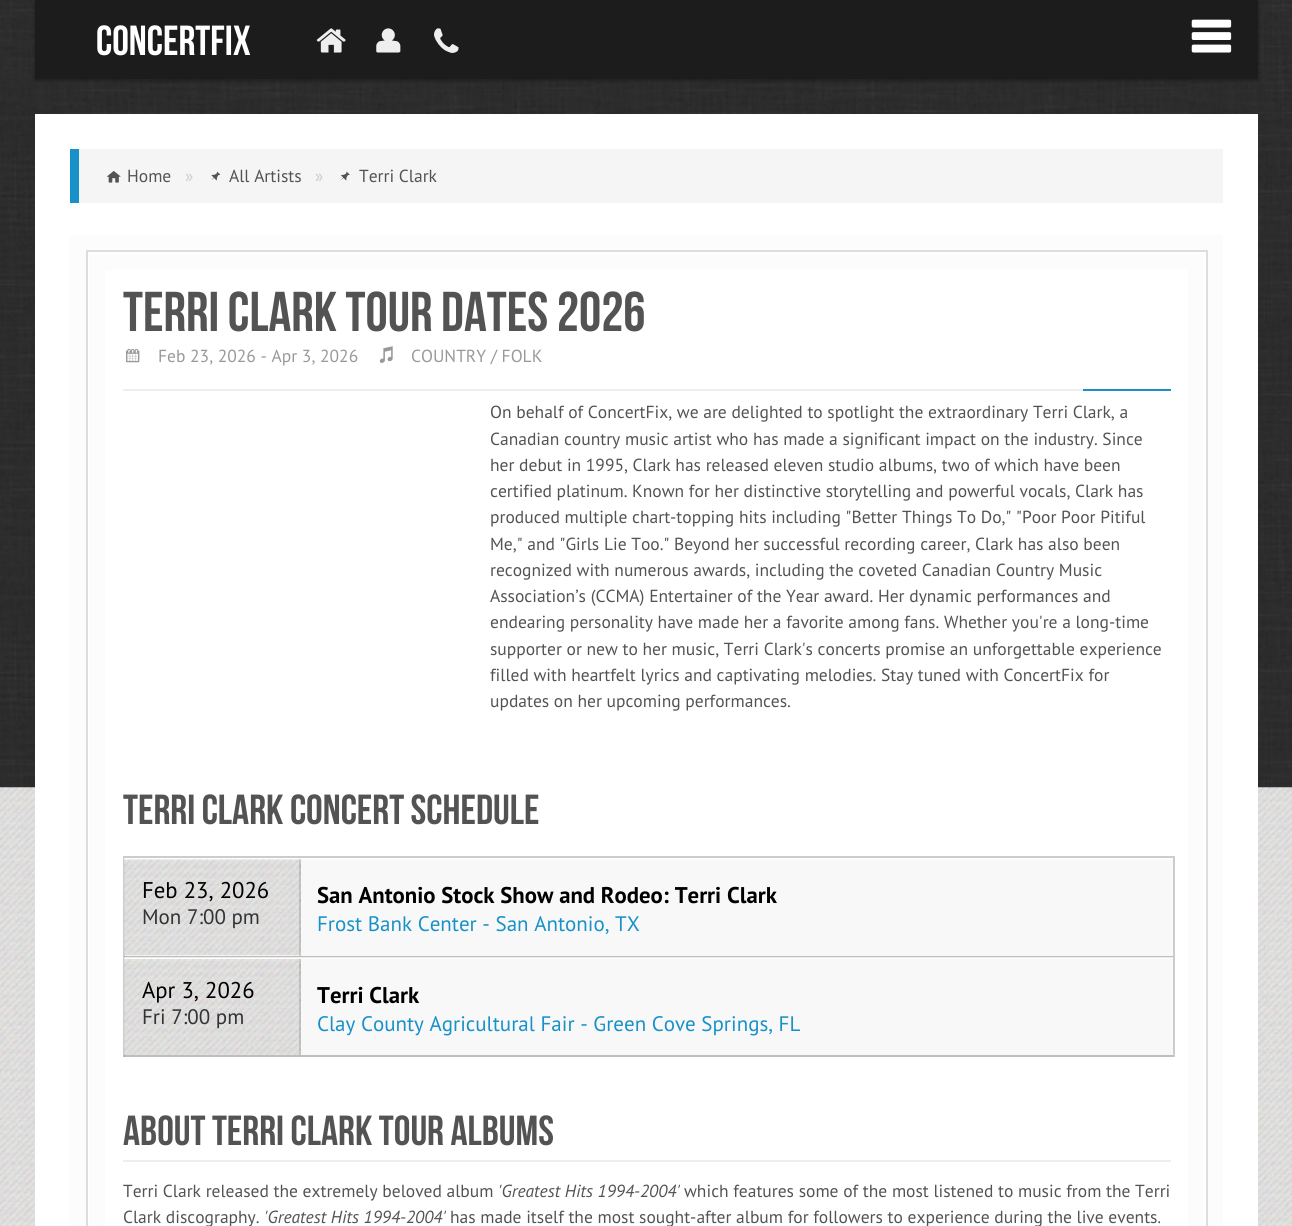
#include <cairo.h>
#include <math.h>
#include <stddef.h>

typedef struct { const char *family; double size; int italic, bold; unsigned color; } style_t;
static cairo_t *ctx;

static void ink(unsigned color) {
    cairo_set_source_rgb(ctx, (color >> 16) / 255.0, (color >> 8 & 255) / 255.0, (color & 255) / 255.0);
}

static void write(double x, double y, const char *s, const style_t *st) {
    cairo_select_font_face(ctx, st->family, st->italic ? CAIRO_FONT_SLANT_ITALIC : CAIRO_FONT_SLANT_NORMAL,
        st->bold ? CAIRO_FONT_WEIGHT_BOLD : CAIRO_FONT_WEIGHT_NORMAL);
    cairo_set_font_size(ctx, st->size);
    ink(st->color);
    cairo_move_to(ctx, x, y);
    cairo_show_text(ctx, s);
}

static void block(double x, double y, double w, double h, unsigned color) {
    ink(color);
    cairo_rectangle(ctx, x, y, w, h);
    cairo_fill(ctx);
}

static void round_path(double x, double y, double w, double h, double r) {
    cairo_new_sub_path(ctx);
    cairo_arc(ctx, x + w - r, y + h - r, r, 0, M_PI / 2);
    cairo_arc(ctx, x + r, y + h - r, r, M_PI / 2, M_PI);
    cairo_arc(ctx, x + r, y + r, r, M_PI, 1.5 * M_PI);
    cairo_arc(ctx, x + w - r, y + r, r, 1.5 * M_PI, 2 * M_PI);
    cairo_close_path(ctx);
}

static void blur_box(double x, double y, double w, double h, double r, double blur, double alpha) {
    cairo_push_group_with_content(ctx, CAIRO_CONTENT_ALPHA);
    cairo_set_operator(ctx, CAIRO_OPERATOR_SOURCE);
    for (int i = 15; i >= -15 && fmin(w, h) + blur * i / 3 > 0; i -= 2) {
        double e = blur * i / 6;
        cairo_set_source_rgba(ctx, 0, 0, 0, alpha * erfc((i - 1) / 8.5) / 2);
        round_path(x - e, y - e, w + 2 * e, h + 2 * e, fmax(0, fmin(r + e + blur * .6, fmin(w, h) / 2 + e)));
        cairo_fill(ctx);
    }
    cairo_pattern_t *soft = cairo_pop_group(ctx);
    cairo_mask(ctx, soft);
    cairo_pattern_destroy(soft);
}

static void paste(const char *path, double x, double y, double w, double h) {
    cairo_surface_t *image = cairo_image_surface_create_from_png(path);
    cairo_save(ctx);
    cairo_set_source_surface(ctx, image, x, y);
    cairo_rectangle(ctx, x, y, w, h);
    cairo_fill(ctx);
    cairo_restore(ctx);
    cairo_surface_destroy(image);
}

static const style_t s1 = {"Bebas Neue", 42, 0, 0, 0xffffff};
static const style_t s2 = {"PT Sans", 17.5, 0, 0, 0x535353};
static const style_t s3 = {"PT Sans", 17.5, 0, 0, 0xcccccc};
static const style_t s4 = {"Bebas Neue", 56, 0, 0, 0x535353};
static const style_t s5 = {"PT Sans", 17.5, 0, 0, 0x999999};
static const style_t s6 = {"Bebas Neue", 42, 0, 0, 0x535353};
static const style_t s7 = {"PT Sans", 22.75, 0, 0, 0x000000};
static const style_t s8 = {"PT Sans", 21, 0, 0, 0x333333};
static const style_t s9 = {"PT Sans", 22.75, 0, 1, 0x000000};
static const style_t s10 = {"PT Sans", 21, 0, 0, 0x1791c7};
static const style_t s11 = {"PT Sans", 17.5, 1, 0, 0x535353};

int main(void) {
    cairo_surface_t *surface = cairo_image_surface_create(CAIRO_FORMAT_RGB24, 1292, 1226);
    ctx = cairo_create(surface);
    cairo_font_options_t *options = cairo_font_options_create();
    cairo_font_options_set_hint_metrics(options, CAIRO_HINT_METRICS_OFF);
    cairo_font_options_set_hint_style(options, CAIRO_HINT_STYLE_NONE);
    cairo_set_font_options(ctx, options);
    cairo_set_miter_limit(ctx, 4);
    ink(0xffffff);
    cairo_paint(ctx);
    paste("pic1.png", 0, 787, 1292, 439);
    paste("pic2.png", 0, 0, 1292, 788);
    ink(0x000000);
    blur_box(35, 2, 1223, 79, 0, 2, 0.3);
    block(35, 0, 1223, 79, 0x1c1c1c);
    write(96, 55, "ConcertFix", &s1);
    paste("pic3.png", 316, 28, 30, 25);
    paste("pic4.png", 376, 28, 25, 25);
    paste("pic5.png", 434, 28, 25, 25);
    paste("pic6.png", 1191, 19, 41, 34);
    block(35, 114, 1223, 1112, 0xffffff);
    block(79, 149, 1144, 54, 0xf5f5f5);
    block(70, 149, 9, 54, 0x1791c7);
    paste("pic7.png", 106, 171, 15, 12);
    write(127, 182, "Home", &s2);
    write(185, 182, "»", &s3);
    paste("pic8.png", 211, 171, 10, 10);
    write(229, 182, "All Artists", &s2);
    write(315, 182, "»", &s3);
    paste("pic9.png", 340, 171, 10, 10);
    write(359, 182, "Terri Clark", &s2);
    cairo_rectangle(ctx, 78, 243, 1137, 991);
    ink(0xfcfcfc);
    cairo_set_line_width(ctx, 16);
    cairo_stroke(ctx);
    cairo_rectangle(ctx, 87, 251, 1120, 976);
    ink(0xdddddd);
    cairo_set_line_width(ctx, 2);
    cairo_stroke(ctx);
    cairo_rectangle(ctx, 97, 262, 1099, 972);
    ink(0xfcfcfc);
    cairo_set_line_width(ctx, 16);
    cairo_stroke(ctx);
    write(123, 331, "Terri Clark Tour Dates 2026", &s4);
    paste("pic10.png", 126, 348, 14, 15);
    write(158, 362, "Feb 23, 2026 - Apr 3, 2026", &s5);
    paste("pic11.png", 379, 346, 14, 17);
    write(411, 362, "COUNTRY / FOLK", &s5);
    block(123, 389, 960, 2, 0xeeeeee);
    block(1083, 389, 88, 2, 0x1791c7);
    write(490, 418, "On behalf of ConcertFix, we are delighted to spotlight the extraordinary Terri Clark, a", &s2);
    write(490, 445, "Canadian country music artist who has made a significant impact on the industry. Since", &s2);
    write(490, 471, "her debut in 1995, Clark has released eleven studio albums, two of which have been", &s2);
    write(490, 497, "certified platinum. Known for her distinctive storytelling and powerful vocals, Clark has", &s2);
    write(490, 523, "produced multiple chart-topping hits including \"Better Things To Do,\" \"Poor Poor Pitiful", &s2);
    write(490, 550, "Me,\" and \"Girls Lie Too.\" Beyond her successful recording career, Clark has also been", &s2);
    write(490, 576, "recognized with numerous awards, including the coveted Canadian Country Music", &s2);
    write(490, 602, "Association’s (CCMA) Entertainer of the Year award. Her dynamic performances and", &s2);
    write(490, 628, "endearing personality have made her a favorite among fans. Whether you're a long-time", &s2);
    write(490, 655, "supporter or new to her music, Terri Clark's concerts promise an unforgettable experience", &s2);
    write(490, 681, "filled with heartfelt lyrics and captivating melodies. Stay tuned with ConcertFix for", &s2);
    write(490, 707, "updates on her upcoming performances.", &s2);
    write(123, 824, "Terri Clark Concert Schedule", &s6);
    block(125, 858, 1048, 199, 0xf8f8f8);
    block(123, 856, 1051, 2, 0xcccccc);
    block(1173, 856, 2, 201, 0xcccccc);
    block(123, 856, 2, 201, 0xcccccc);
    cairo_set_source_rgba(ctx, 1, 1, 1, 0.69);
    cairo_rectangle(ctx, 124, 858, 1049, 2);
    cairo_fill(ctx);
    cairo_set_source_rgba(ctx, 0.192, 0.192, 0.192, 0.29);
    cairo_rectangle(ctx, 124, 956, 1049, 2);
    cairo_fill(ctx);
    paste("pic12.png", 124, 859, 177, 97);
    cairo_set_source_rgba(ctx, 0, 0, 0, 0.13);
    cairo_rectangle(ctx, 299, 859, 2, 97);
    cairo_fill(ctx);
    cairo_set_source_rgba(ctx, 1, 1, 1, 0.12);
    cairo_rectangle(ctx, 124, 859, 177, 2);
    cairo_fill(ctx);
    write(142, 898, "Feb 23, 2026", &s7);
    write(142, 924, "Mon 7:00 pm", &s8);
    write(317, 903, "San Antonio Stock Show and Rodeo: Terri Clark", &s9);
    write(317, 931, "Frost Bank Center - San Antonio, TX", &s10);
    cairo_set_source_rgba(ctx, 1, 1, 1, 0.69);
    cairo_rectangle(ctx, 124, 957, 1049, 2);
    cairo_fill(ctx);
    cairo_set_source_rgba(ctx, 0.192, 0.192, 0.192, 0.29);
    cairo_rectangle(ctx, 124, 1055, 1049, 2);
    cairo_fill(ctx);
    paste("pic13.png", 124, 959, 177, 96);
    cairo_set_source_rgba(ctx, 0, 0, 0, 0.13);
    cairo_rectangle(ctx, 299, 959, 2, 96);
    cairo_fill(ctx);
    cairo_set_source_rgba(ctx, 1, 1, 1, 0.12);
    cairo_rectangle(ctx, 124, 959, 177, 2);
    cairo_fill(ctx);
    write(142, 998, "Apr 3, 2026", &s7);
    write(142, 1024, "Fri 7:00 pm", &s8);
    write(317, 1003, "Terri Clark", &s9);
    write(317, 1031, "Clay County Agricultural Fair - Green Cove Springs, FL", &s10);
    block(123, 1160, 1048, 2, 0xeeeeee);
    write(123, 1145, "About Terri Clark Tour Albums", &s6);
    write(123, 1197, "Terri Clark released the extremely beloved album", &s2);
    write(498, 1197, "'Greatest Hits 1994-2004'", &s11);
    write(684, 1197, "which features some of the most listened to music from the Terri", &s2);
    write(123, 1223, "Clark discography.", &s2);
    write(264, 1223, "'Greatest Hits 1994-2004'", &s11);
    write(450, 1223, "has made itself the most sought-after album for followers to experience during the live events.", &s2);
    cairo_surface_write_to_png(surface, "screenshot.png");
    cairo_font_options_destroy(options);
    cairo_destroy(ctx);
    cairo_surface_destroy(surface);
    return 0;
}
